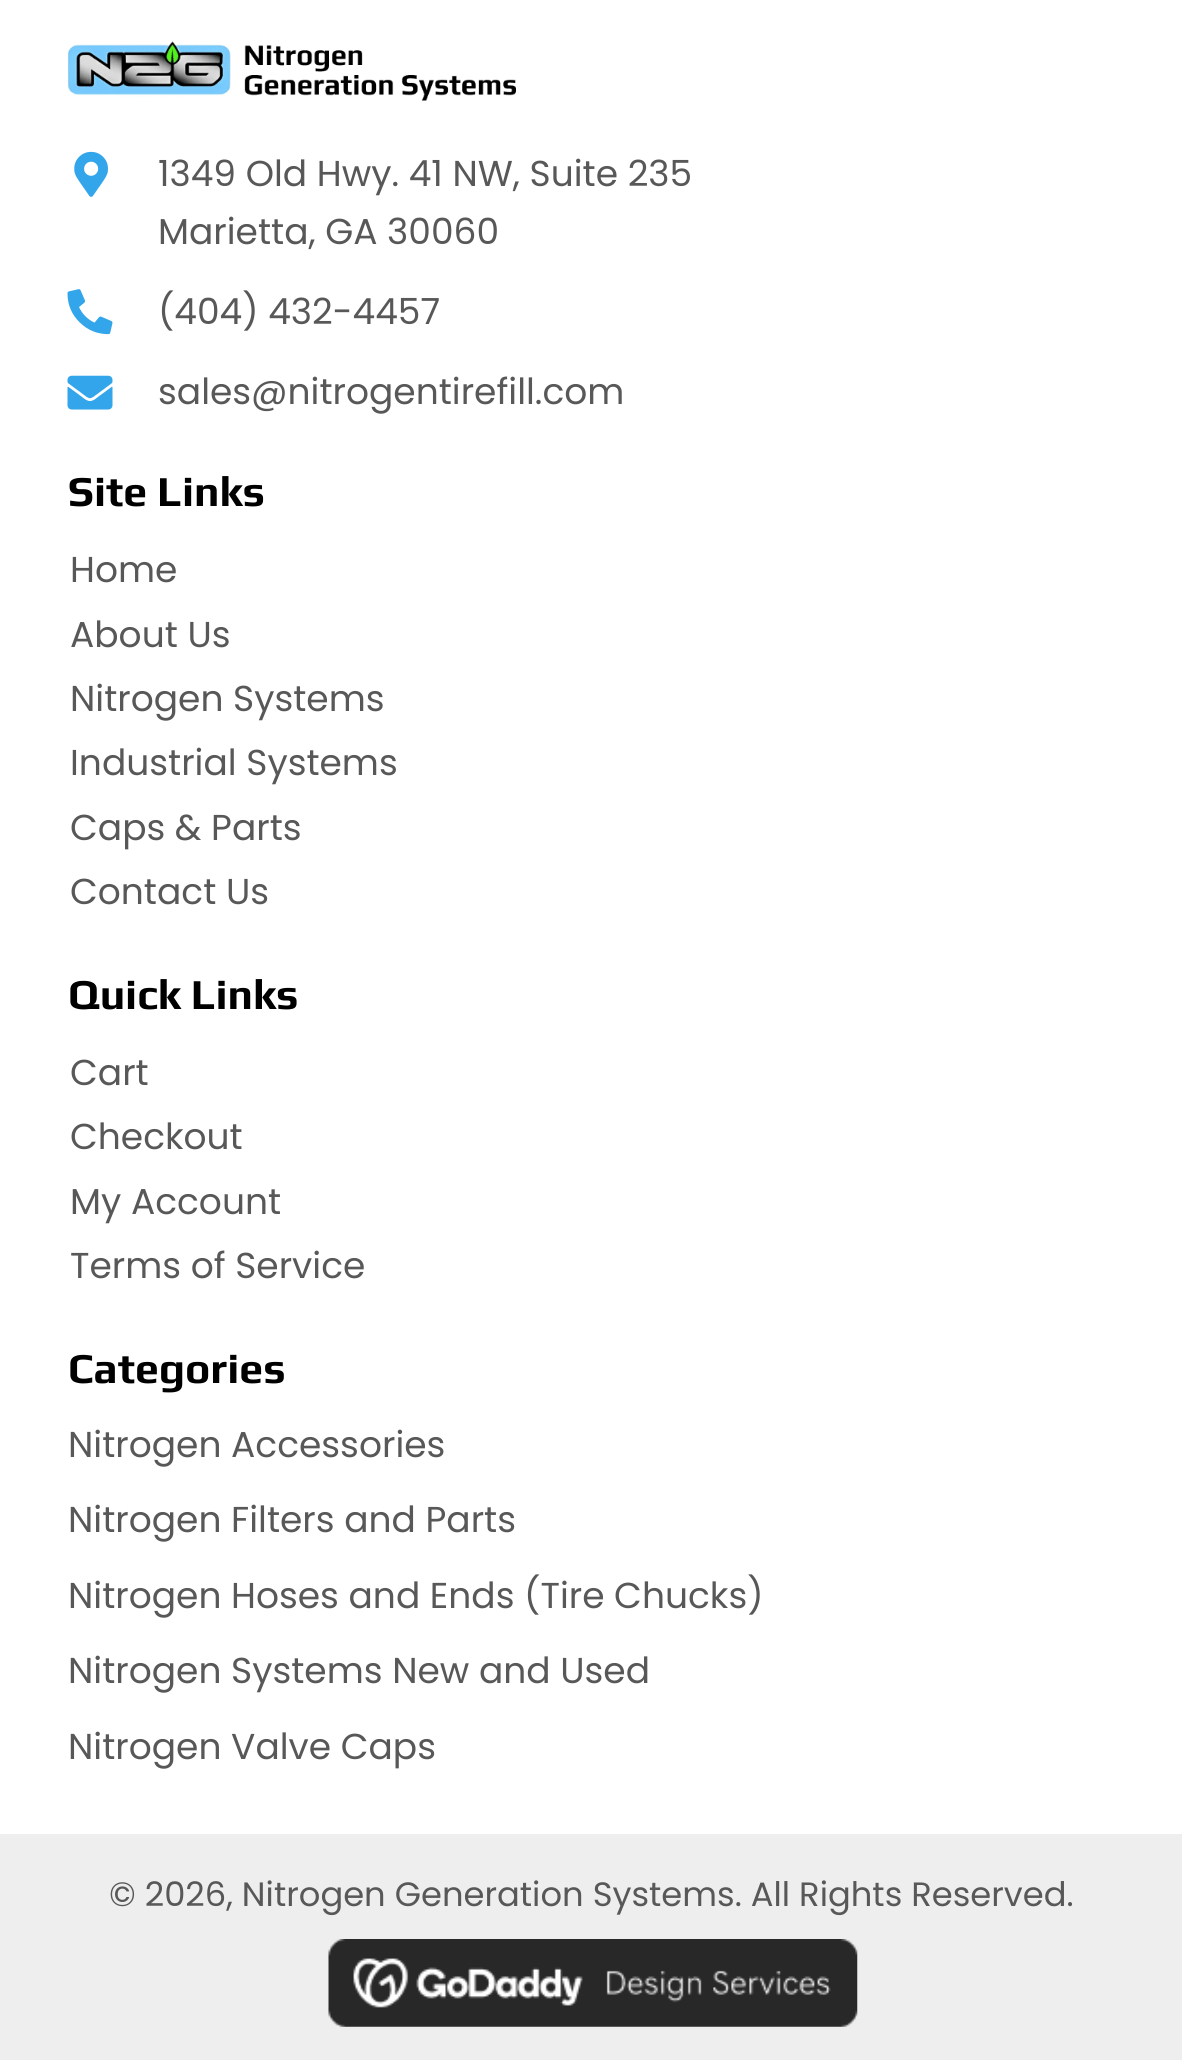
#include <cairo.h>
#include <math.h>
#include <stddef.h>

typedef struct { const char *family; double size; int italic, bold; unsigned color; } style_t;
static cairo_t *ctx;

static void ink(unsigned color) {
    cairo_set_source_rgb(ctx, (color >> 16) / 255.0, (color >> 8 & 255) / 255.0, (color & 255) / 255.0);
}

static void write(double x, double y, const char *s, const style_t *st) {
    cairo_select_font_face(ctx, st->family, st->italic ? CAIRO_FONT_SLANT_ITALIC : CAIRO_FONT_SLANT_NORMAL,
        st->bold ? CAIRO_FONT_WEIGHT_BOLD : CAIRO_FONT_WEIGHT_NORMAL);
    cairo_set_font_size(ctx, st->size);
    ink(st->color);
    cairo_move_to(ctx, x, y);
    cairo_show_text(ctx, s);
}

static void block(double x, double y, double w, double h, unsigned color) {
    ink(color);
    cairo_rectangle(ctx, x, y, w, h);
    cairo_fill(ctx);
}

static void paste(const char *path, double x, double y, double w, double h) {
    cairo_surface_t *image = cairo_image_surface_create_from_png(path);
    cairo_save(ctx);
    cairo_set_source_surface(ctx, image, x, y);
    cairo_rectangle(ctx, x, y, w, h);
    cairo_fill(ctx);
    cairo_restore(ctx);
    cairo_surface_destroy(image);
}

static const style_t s1 = {"Poppins", 36, 0, 0, 0x585858};
static const style_t s2 = {"Play", 42.75, 0, 1, 0x000000};
static const style_t s3 = {"Poppins", 33.75, 0, 0, 0x585858};

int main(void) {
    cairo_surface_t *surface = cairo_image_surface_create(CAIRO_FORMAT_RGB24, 1182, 2060);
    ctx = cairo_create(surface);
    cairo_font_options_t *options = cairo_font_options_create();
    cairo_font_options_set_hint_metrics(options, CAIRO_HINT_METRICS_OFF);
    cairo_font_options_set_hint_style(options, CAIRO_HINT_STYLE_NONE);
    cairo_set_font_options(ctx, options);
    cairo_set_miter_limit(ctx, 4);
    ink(0xffffff);
    cairo_paint(ctx);
    paste("pic1.png", 67, 41, 449, 60);
    paste("pic2.png", 74, 151, 34, 46);
    write(158, 186, "1349 Old Hwy. 41 NW, Suite 235", &s1);
    write(158, 244, "Marietta, GA 30060", &s1);
    paste("pic3.png", 67, 289, 46, 46);
    write(158, 324, "(404) 432-4457", &s1);
    paste("pic4.png", 67, 375, 46, 35);
    write(158, 404, "sales@nitrogentirefill.com", &s1);
    write(68, 506, "Site Links", &s2);
    write(70, 582, "Home", &s1);
    write(70, 647, "About Us", &s1);
    write(70, 711, "Nitrogen Systems", &s1);
    write(70, 775, "Industrial Systems", &s1);
    write(70, 840, "Caps & Parts", &s1);
    write(70, 904, "Contact Us", &s1);
    write(68, 1009, "Quick Links", &s2);
    write(70, 1085, "Cart", &s1);
    write(70, 1149, "Checkout", &s1);
    write(70, 1214, "My Account", &s1);
    write(70, 1278, "Terms of Service", &s1);
    write(68, 1383, "Categories", &s2);
    write(68, 1457, "Nitrogen Accessories", &s1);
    write(68, 1532, "Nitrogen Filters and Parts", &s1);
    write(68, 1608, "Nitrogen Hoses and Ends (Tire Chucks)", &s1);
    write(68, 1683, "Nitrogen Systems New and Used", &s1);
    write(68, 1759, "Nitrogen Valve Caps", &s1);
    block(0, 1834, 1182, 226, 0xeeeeee);
    write(109, 1906, "© 2026, Nitrogen Generation Systems. All Rights Reserved.", &s3);
    paste("pic5.png", 328, 1939, 530, 88);
    cairo_surface_write_to_png(surface, "screenshot.png");
    cairo_font_options_destroy(options);
    cairo_destroy(ctx);
    cairo_surface_destroy(surface);
    return 0;
}
